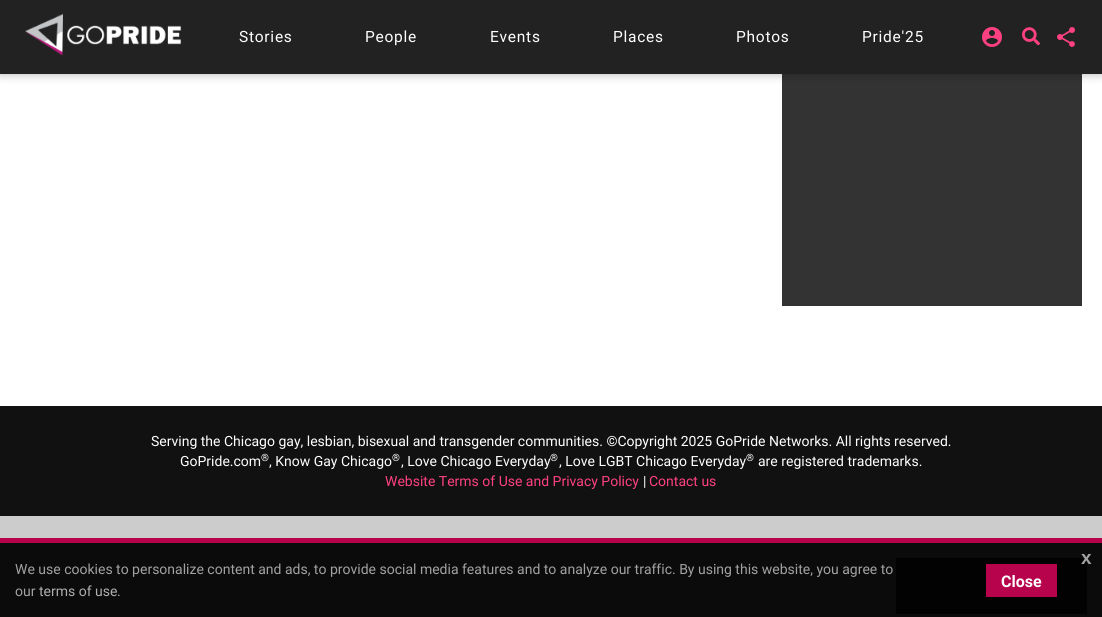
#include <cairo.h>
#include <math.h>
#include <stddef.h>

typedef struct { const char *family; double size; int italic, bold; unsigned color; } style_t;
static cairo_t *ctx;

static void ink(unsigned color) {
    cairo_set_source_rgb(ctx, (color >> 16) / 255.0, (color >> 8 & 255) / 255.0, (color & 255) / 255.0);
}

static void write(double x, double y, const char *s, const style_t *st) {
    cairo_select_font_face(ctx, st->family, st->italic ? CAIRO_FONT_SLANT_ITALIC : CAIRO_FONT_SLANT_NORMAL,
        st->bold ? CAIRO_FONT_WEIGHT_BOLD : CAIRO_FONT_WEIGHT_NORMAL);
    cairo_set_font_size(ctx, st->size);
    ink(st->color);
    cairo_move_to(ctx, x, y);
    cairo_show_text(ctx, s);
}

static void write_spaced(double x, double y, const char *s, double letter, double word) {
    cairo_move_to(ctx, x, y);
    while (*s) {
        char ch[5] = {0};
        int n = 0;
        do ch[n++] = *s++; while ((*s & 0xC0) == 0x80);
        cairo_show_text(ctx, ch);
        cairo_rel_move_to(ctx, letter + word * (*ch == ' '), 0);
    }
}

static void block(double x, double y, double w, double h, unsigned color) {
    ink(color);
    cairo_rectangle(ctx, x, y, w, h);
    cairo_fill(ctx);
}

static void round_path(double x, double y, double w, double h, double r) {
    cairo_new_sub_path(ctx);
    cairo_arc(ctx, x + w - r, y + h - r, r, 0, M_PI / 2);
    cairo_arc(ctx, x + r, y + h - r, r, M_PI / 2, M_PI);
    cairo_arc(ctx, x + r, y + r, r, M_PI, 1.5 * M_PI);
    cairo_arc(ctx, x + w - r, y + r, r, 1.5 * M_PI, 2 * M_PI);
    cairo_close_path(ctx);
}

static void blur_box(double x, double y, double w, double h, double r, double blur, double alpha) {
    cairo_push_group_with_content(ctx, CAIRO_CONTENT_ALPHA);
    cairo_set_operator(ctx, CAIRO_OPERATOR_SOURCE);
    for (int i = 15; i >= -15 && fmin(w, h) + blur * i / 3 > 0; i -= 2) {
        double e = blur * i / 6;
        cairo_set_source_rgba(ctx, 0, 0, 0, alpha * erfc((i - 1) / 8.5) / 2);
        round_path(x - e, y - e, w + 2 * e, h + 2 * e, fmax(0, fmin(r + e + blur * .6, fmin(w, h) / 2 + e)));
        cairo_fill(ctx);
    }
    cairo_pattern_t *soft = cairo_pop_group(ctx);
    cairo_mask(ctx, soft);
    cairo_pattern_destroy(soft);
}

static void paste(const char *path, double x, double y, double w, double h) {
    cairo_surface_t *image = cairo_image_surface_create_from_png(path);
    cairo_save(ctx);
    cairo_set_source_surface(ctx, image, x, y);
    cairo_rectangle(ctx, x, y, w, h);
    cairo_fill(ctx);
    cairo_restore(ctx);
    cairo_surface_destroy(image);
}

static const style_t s1 = {"Roboto", 14, 0, 0, 0xffffff};
static const style_t s2 = {"Roboto", 10, 0, 0, 0xffffff};
static const style_t s3 = {"Roboto", 14, 0, 0, 0xff4081};
static const style_t s4 = {"Liberation Sans", 19, 0, 1, 0xa2a2a2};
static const style_t s5 = {"Roboto", 14, 0, 0, 0xa2a2a2};
static const style_t s6 = {"Roboto", 14, 0, 0, 0xafafaf};
static const style_t s7 = {"Roboto", 16, 0, 1, 0xffffff};

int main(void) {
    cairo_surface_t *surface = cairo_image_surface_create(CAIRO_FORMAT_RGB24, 1102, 617);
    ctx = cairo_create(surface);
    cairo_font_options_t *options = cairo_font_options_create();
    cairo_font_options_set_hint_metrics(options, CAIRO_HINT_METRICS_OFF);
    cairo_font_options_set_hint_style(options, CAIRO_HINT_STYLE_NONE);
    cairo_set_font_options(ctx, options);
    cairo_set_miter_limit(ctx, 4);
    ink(0xffffff);
    cairo_paint(ctx);
    block(782, 74, 300, 232, 0x333333);
    ink(0x000000);
    blur_box(0, 0, 1102, 74, 0, 5, 0.3);
    block(0, 0, 1102, 74, 0x222222);
    paste("pic1.png", 25, 13, 157, 43);
    cairo_select_font_face(ctx, "Roboto", CAIRO_FONT_SLANT_NORMAL, CAIRO_FONT_WEIGHT_NORMAL);
    cairo_set_font_size(ctx, 15.5);
    ink(0xffffff);
    write_spaced(239, 42, "Stories", 0.75, 0);
    write_spaced(365, 42, "People", 0.75, 0);
    write_spaced(490, 42, "Events", 0.75, 0);
    write_spaced(613, 42, "Places", 0.75, 0);
    write_spaced(736, 42, "Photos", 0.75, 0);
    write_spaced(862, 42, "Pride'25", 0.75, 0);
    paste("pic2.png", 982, 27, 20, 20);
    paste("pic3.png", 1022, 27, 18, 19);
    paste("pic4.png", 1057, 27, 18, 20);
    block(0, 406, 1102, 110, 0x111111);
    write(151, 446, "Serving the Chicago gay, lesbian, bisexual and transgender communities. ©Copyright 2025 GoPride Networks. All rights reserved.", &s1);
    write(180, 466, "GoPride.com", &s1);
    write(261, 461, "®", &s2);
    write(269, 466, ", Know Gay Chicago", &s1);
    write(401, 466, ", Love Chicago Everyday", &s1);
    write(392, 461, "®", &s2);
    write(559, 466, ", Love LGBT Chicago Everyday", &s1);
    write(550, 461, "®", &s2);
    write(746, 461, "®", &s2);
    write(758, 466, "are registered trademarks.", &s1);
    write(385, 486, "Website Terms of Use and Privacy Policy", &s3);
    write(643, 486, "|", &s1);
    write(649, 486, "Contact us", &s3);
    block(0, 516, 1102, 22, 0xcccccc);
    block(0, 538, 1102, 5, 0xb7034c);
    block(0, 543, 1102, 74, 0x0b0b0b);
    block(896, 558, 191, 56, 0x020202);
    write(1081, 564, "x", &s4);
    write(15, 574, "We use cookies to personalize content and ads, to provide social media features and to analyze our traffic. By using this website, you agree to", &s5);
    write(15, 596, "our", &s5);
    write(39, 596, "terms of use", &s6);
    write(117, 596, ".", &s5);
    block(986, 564, 71, 33, 0xb7034c);
    write(1001, 587, "Close", &s7);
    cairo_surface_write_to_png(surface, "screenshot.png");
    cairo_font_options_destroy(options);
    cairo_destroy(ctx);
    cairo_surface_destroy(surface);
    return 0;
}
